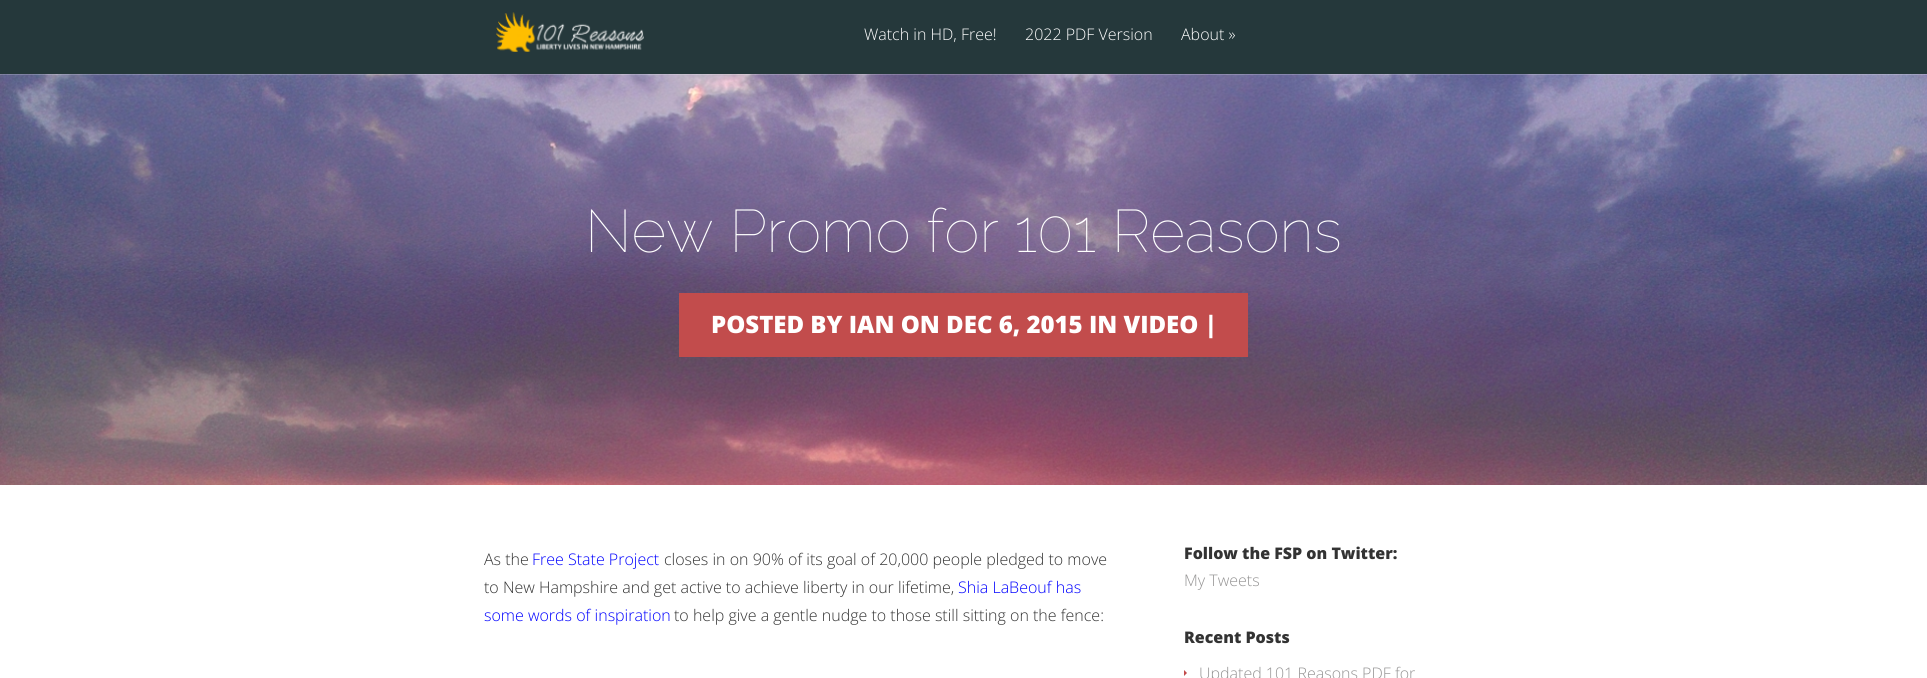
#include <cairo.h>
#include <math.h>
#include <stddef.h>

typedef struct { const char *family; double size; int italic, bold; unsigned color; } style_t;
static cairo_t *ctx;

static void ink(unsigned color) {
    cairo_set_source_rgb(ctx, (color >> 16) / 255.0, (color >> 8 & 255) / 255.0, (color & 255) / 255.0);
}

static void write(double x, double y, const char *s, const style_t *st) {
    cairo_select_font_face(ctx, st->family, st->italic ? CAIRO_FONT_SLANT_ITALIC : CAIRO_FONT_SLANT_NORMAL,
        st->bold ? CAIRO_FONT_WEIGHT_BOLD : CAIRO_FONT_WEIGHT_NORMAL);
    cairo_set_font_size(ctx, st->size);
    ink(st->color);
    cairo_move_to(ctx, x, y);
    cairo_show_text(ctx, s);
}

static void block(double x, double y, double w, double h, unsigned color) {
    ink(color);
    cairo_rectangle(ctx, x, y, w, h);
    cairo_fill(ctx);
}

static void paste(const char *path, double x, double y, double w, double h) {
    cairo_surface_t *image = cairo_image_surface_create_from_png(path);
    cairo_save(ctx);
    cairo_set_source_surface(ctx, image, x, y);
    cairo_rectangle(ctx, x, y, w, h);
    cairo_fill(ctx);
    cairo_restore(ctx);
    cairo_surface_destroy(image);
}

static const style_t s1 = {"Open Sans Light", 16, 0, 0, 0xffffff};
static const style_t s2 = {"Raleway Thin", 60, 0, 0, 0xffffff};
static const style_t s3 = {"Open Sans ExtraBold", 24, 0, 0, 0xffffff};
static const style_t s4 = {"Open Sans Light", 16, 0, 0, 0x333333};
static const style_t s5 = {"Open Sans Light", 16, 0, 0, 0x0000ff};
static const style_t s6 = {"Open Sans ExtraBold", 16, 0, 0, 0x333333};
static const style_t s7 = {"Open Sans Light", 16, 0, 0, 0x959494};

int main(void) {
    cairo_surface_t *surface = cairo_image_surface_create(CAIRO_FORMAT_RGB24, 1927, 678);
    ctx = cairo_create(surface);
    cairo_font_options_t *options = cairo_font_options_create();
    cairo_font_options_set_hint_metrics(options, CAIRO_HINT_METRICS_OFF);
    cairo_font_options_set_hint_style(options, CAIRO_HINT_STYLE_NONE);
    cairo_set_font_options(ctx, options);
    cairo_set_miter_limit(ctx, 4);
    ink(0x25383b);
    cairo_paint(ctx);
    paste("pic2.png", 0, 74, 1927, 411);
    cairo_set_source_rgba(ctx, 1, 1, 1, 0.2);
    cairo_rectangle(ctx, 0, 74, 1927, 1);
    cairo_fill(ctx);
    paste("pic1.png", 496, 12, 148, 40);
    write(864, 40, "Watch in HD, Free!", &s1);
    write(1025, 40, "2022 PDF Version", &s1);
    write(1181, 40, "About »", &s1);
    write(585, 252, "New Promo for 101 Reasons", &s2);
    block(679, 293, 569, 64, 0xc24c4c);
    write(711, 333, "POSTED BY IAN ON DEC 6, 2015 IN VIDEO |", &s3);
    block(0, 485, 1927, 193, 0xffffff);
    write(484, 565, "As the", &s4);
    write(532, 565, "Free State Project", &s5);
    write(664, 565, "closes in on 90% of its goal of 20,000 people pledged to move", &s4);
    write(484, 593, "to New Hampshire and get active to achieve liberty in our lifetime,", &s4);
    write(958, 593, "Shia LaBeouf has", &s5);
    write(484, 621, "some words of inspiration", &s5);
    write(674, 621, "to help give a gentle nudge to those still sitting on the fence:", &s4);
    write(1184, 559, "Follow the FSP on Twitter:", &s6);
    write(1184, 586, "My Tweets", &s7);
    write(1184, 643, "Recent Posts", &s6);
    ink(0xc24c4c);
    cairo_new_path(ctx);
    cairo_move_to(ctx, 1184, 676);
    cairo_line_to(ctx, 1184, 670);
    cairo_line_to(ctx, 1187, 673);
    cairo_close_path(ctx);
    cairo_fill(ctx);
    write(1199, 679, "Updated 101 Reasons PDF for", &s7);
    cairo_surface_write_to_png(surface, "screenshot.png");
    cairo_font_options_destroy(options);
    cairo_destroy(ctx);
    cairo_surface_destroy(surface);
    return 0;
}
